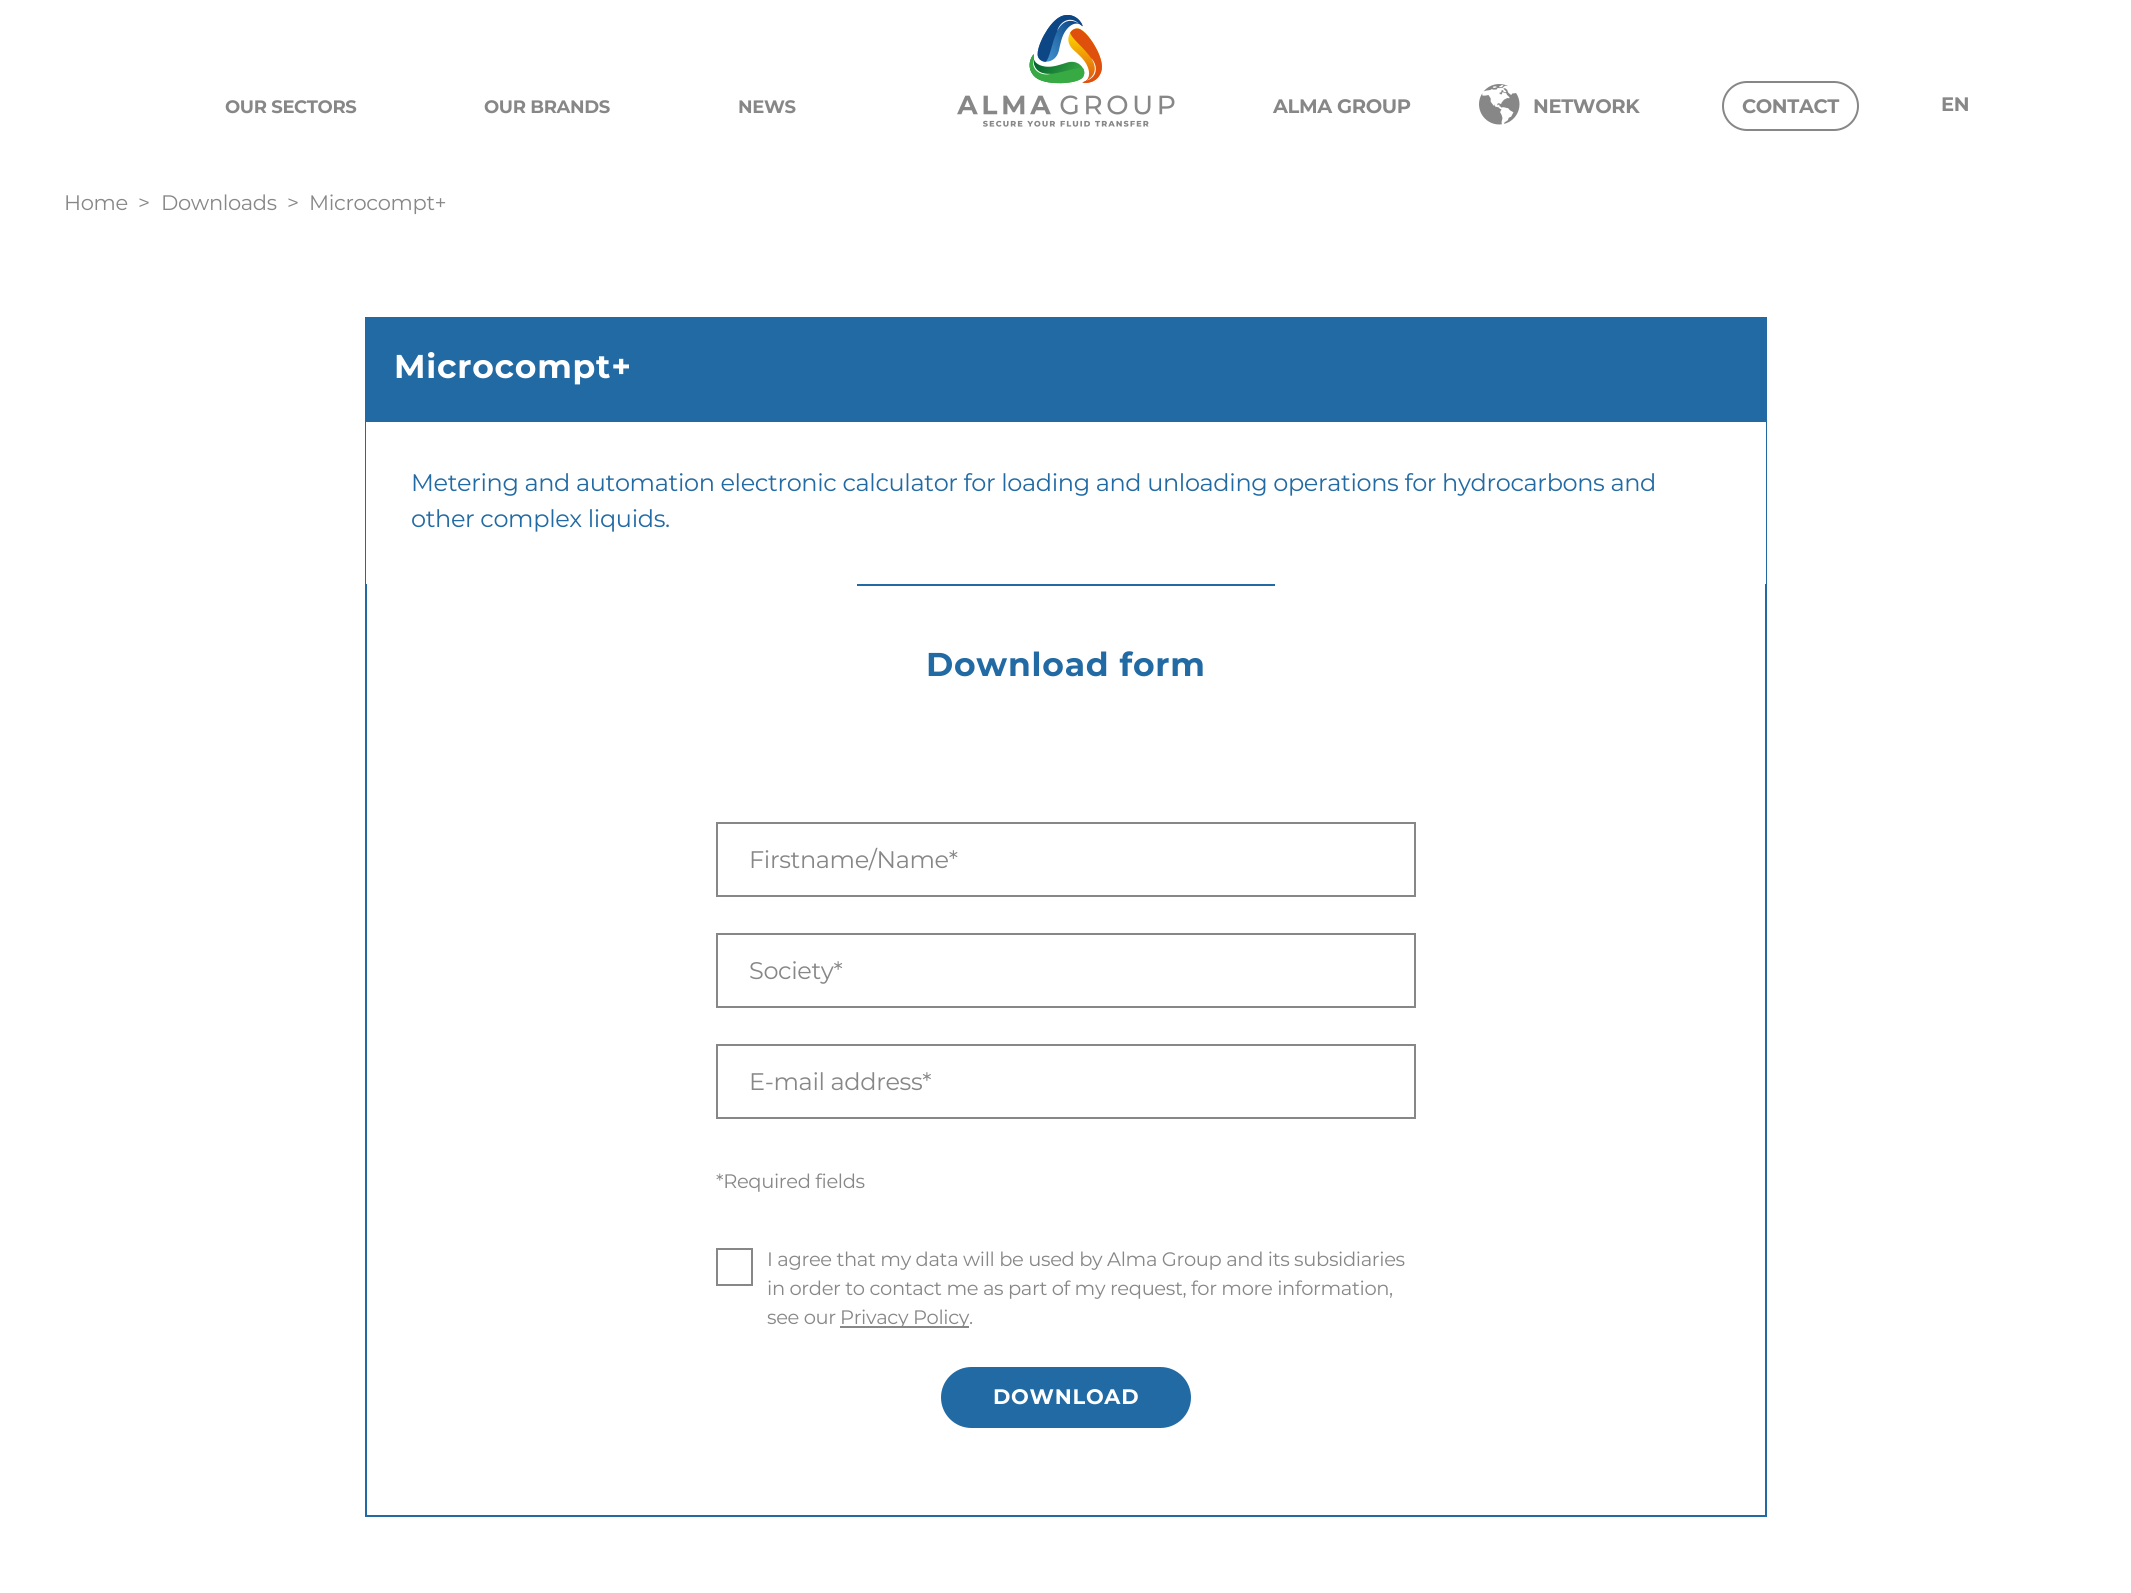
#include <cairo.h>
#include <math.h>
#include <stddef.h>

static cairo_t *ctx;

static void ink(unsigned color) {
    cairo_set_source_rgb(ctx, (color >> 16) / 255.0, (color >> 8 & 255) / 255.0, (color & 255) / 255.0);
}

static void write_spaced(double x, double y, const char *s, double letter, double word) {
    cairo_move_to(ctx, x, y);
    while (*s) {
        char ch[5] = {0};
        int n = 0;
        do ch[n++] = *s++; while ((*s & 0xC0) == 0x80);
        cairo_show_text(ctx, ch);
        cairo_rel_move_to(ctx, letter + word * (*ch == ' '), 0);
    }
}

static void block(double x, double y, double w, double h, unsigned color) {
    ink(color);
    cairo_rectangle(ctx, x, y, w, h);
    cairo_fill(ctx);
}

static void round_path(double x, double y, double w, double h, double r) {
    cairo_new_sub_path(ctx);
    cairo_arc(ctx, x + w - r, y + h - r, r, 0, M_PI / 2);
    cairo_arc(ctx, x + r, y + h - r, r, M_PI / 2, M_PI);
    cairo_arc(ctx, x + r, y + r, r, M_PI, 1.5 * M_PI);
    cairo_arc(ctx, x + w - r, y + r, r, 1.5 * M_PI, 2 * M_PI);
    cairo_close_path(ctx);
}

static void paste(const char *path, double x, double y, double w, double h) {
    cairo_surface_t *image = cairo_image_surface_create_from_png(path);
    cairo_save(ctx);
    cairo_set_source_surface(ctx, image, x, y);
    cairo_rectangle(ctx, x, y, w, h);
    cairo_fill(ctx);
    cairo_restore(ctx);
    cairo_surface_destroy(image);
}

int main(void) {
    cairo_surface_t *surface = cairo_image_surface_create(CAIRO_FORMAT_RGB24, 2131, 1593);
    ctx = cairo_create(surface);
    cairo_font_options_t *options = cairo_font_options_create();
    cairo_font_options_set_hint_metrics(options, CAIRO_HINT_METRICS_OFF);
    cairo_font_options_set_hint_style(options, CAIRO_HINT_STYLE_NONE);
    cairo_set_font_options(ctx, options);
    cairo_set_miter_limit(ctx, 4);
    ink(0xffffff);
    cairo_paint(ctx);
    cairo_select_font_face(ctx, "Montserrat", CAIRO_FONT_SLANT_NORMAL, CAIRO_FONT_WEIGHT_BOLD);
    cairo_set_font_size(ctx, 18);
    ink(0x878787);
    write_spaced(225, 113, "OUR SECTORS", -0.36, 0);
    write_spaced(484, 113, "OUR BRANDS", -0.36, 0);
    write_spaced(738, 113, "NEWS", -0.36, 0);
    paste("pic1.png", 957, 15, 218, 112);
    cairo_set_font_size(ctx, 19.5);
    write_spaced(1273, 113, "ALMA GROUP", -0.36, 0);
    paste("pic2.png", 1479, 84, 41, 41);
    write_spaced(1533, 113, "NETWORK", -0.36, 0);
    round_path(1723, 82, 135, 48, 24);
    cairo_stroke(ctx);
    write_spaced(1742, 113, "CONTACT", -0.36, 0);
    write_spaced(1941, 111, "EN", -0.36, 0);
    cairo_select_font_face(ctx, "Montserrat", CAIRO_FONT_SLANT_NORMAL, CAIRO_FONT_WEIGHT_NORMAL);
    cairo_set_font_size(ctx, 21);
    write_spaced(64, 210, "Home", -0.36, 0);
    write_spaced(138, 210, ">", -0.36, 0);
    write_spaced(161, 210, "Downloads", -0.36, 0);
    write_spaced(287, 210, ">", -0.36, 0);
    write_spaced(309, 210, "Microcompt+", -0.36, 0);
    block(365, 317, 1402, 103, 0x226aa3);
    cairo_select_font_face(ctx, "Montserrat", CAIRO_FONT_SLANT_NORMAL, CAIRO_FONT_WEIGHT_BOLD);
    cairo_set_font_size(ctx, 33);
    ink(0xffffff);
    write_spaced(394, 378, "Microcompt+", 0.75, 0);
    cairo_rectangle(ctx, 366, 421, 1400, 1095);
    ink(0x226aa3);
    cairo_stroke(ctx);
    block(366, 422, 1400, 162, 0xffffff);
    cairo_select_font_face(ctx, "Montserrat", CAIRO_FONT_SLANT_NORMAL, CAIRO_FONT_WEIGHT_NORMAL);
    cairo_set_font_size(ctx, 24);
    ink(0x226aa3);
    write_spaced(411, 491, "Metering and automation electronic calculator for loading and unloading operations for hydrocarbons and", -0.36, 0);
    write_spaced(411, 527, "other complex liquids.", -0.36, 0);
    block(857, 584, 418, 2, 0x226aa3);
    cairo_select_font_face(ctx, "Montserrat", CAIRO_FONT_SLANT_NORMAL, CAIRO_FONT_WEIGHT_BOLD);
    cairo_set_font_size(ctx, 33);
    write_spaced(926, 676, "Download form", 0.75, 0);
    cairo_rectangle(ctx, 717, 823, 698, 73);
    ink(0x878787);
    cairo_stroke(ctx);
    cairo_select_font_face(ctx, "Montserrat", CAIRO_FONT_SLANT_NORMAL, CAIRO_FONT_WEIGHT_NORMAL);
    cairo_set_font_size(ctx, 24);
    write_spaced(749, 868, "Firstname/Name*", -0.36, 0);
    cairo_rectangle(ctx, 717, 934, 698, 73);
    cairo_stroke(ctx);
    write_spaced(749, 979, "Society*", -0.36, 0);
    cairo_rectangle(ctx, 717, 1045, 698, 73);
    cairo_stroke(ctx);
    write_spaced(749, 1090, "E-mail address*", -0.36, 0);
    cairo_set_font_size(ctx, 19.5);
    write_spaced(716, 1188, "*Required fields", -0.36, 0);
    cairo_rectangle(ctx, 717, 1249, 35, 36);
    cairo_stroke(ctx);
    write_spaced(767, 1266, "I agree that my data will be used by Alma Group and its subsidiaries", -0.36, 0);
    write_spaced(767, 1295, "in order to contact me as part of my request, for more information,", -0.36, 0);
    write_spaced(767, 1324, "see our", -0.36, 0);
    block(840, 1326, 129, 2, 0x878787);
    write_spaced(840, 1324, "Privacy Policy.", -0.36, 0);
    ink(0x226aa3);
    round_path(939.5, 1365.5, 253, 64, 32);
    cairo_fill_preserve(ctx);
    ink(0xffffff);
    cairo_set_line_width(ctx, 3);
    cairo_stroke(ctx);
    cairo_select_font_face(ctx, "Montserrat", CAIRO_FONT_SLANT_NORMAL, CAIRO_FONT_WEIGHT_BOLD);
    cairo_set_font_size(ctx, 21);
    write_spaced(993, 1404, "DOWNLOAD", 0.75, 0);
    cairo_surface_write_to_png(surface, "screenshot.png");
    cairo_font_options_destroy(options);
    cairo_destroy(ctx);
    cairo_surface_destroy(surface);
    return 0;
}
